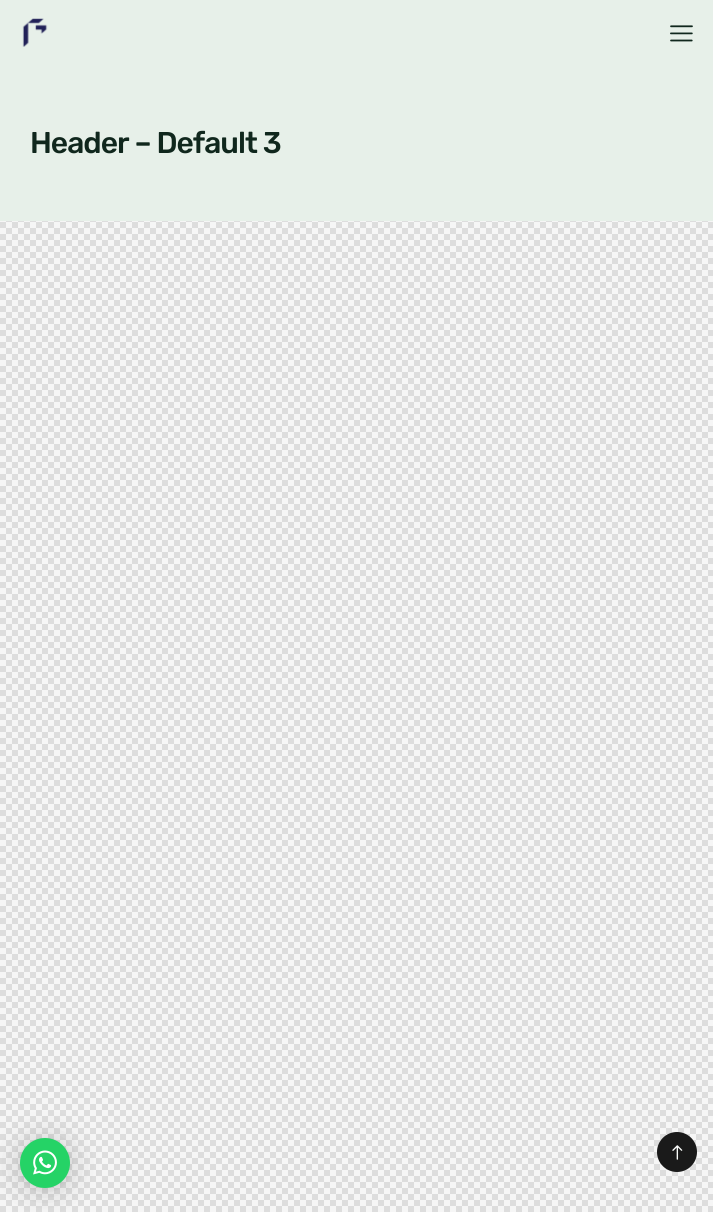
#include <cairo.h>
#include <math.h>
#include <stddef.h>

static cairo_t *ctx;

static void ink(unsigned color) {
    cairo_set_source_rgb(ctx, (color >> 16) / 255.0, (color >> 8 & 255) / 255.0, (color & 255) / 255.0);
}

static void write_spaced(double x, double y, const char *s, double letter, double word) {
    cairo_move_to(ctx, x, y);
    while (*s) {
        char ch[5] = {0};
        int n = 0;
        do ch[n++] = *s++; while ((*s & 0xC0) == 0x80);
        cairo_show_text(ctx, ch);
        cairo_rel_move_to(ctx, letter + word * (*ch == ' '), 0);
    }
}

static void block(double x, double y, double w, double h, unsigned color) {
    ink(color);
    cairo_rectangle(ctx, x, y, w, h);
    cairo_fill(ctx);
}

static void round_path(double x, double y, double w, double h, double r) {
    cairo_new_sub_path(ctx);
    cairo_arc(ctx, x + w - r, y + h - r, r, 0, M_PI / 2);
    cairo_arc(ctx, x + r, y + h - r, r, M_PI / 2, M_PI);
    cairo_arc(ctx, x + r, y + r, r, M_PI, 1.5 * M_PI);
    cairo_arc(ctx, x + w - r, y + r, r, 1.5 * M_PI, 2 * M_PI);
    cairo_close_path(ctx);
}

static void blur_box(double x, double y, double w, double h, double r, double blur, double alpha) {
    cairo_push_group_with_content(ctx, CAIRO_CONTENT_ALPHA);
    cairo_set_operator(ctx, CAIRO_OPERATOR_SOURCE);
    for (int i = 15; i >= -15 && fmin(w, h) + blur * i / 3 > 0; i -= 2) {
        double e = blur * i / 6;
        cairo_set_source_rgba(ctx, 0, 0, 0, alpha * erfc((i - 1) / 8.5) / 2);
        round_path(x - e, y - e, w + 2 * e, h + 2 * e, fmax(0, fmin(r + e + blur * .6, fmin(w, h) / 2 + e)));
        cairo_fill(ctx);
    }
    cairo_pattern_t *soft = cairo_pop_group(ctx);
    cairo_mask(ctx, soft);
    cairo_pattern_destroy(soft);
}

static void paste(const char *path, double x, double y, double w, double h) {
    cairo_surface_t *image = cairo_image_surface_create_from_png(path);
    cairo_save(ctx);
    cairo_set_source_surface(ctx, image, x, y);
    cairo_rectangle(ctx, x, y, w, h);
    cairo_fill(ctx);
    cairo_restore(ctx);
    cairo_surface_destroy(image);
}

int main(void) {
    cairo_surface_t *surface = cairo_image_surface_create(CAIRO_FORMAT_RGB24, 713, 1212);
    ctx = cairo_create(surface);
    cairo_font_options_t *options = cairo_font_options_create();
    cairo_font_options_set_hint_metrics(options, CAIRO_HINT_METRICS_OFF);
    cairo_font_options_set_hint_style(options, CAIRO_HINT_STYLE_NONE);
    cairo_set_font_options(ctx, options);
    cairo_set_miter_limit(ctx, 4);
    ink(0xffffff);
    cairo_paint(ctx);
    paste("pic1.png", 0, 221, 713, 991);
    block(0, 0, 713, 221, 0xe7f0e9);
    paste("pic2.png", 22, 18, 26, 29);
    paste("pic3.png", 670, 25, 23, 17);
    cairo_select_font_face(ctx, "Rubik Medium", CAIRO_FONT_SLANT_NORMAL, CAIRO_FONT_WEIGHT_NORMAL);
    cairo_set_font_size(ctx, 30);
    ink(0x10271d);
    write_spaced(30, 153, "Header – Default 3", -1, 0);
    ink(0x000000);
    blur_box(20, 1140, 50, 50, 25, 16, 0.16);
    blur_box(20, 1139, 50, 50, 25, 3, 0.06);
    ink(0x25d366);
    cairo_arc(ctx, 45, 1163, 25, 0, 2 * M_PI);
    cairo_fill(ctx);
    paste("pic4.png", 33, 1150, 24, 25);
    ink(0x1a1a1a);
    cairo_arc(ctx, 677, 1152, 20, 0, 2 * M_PI);
    cairo_fill(ctx);
    paste("pic5.png", 672, 1145, 11, 15);
    cairo_surface_write_to_png(surface, "screenshot.png");
    cairo_font_options_destroy(options);
    cairo_destroy(ctx);
    cairo_surface_destroy(surface);
    return 0;
}
